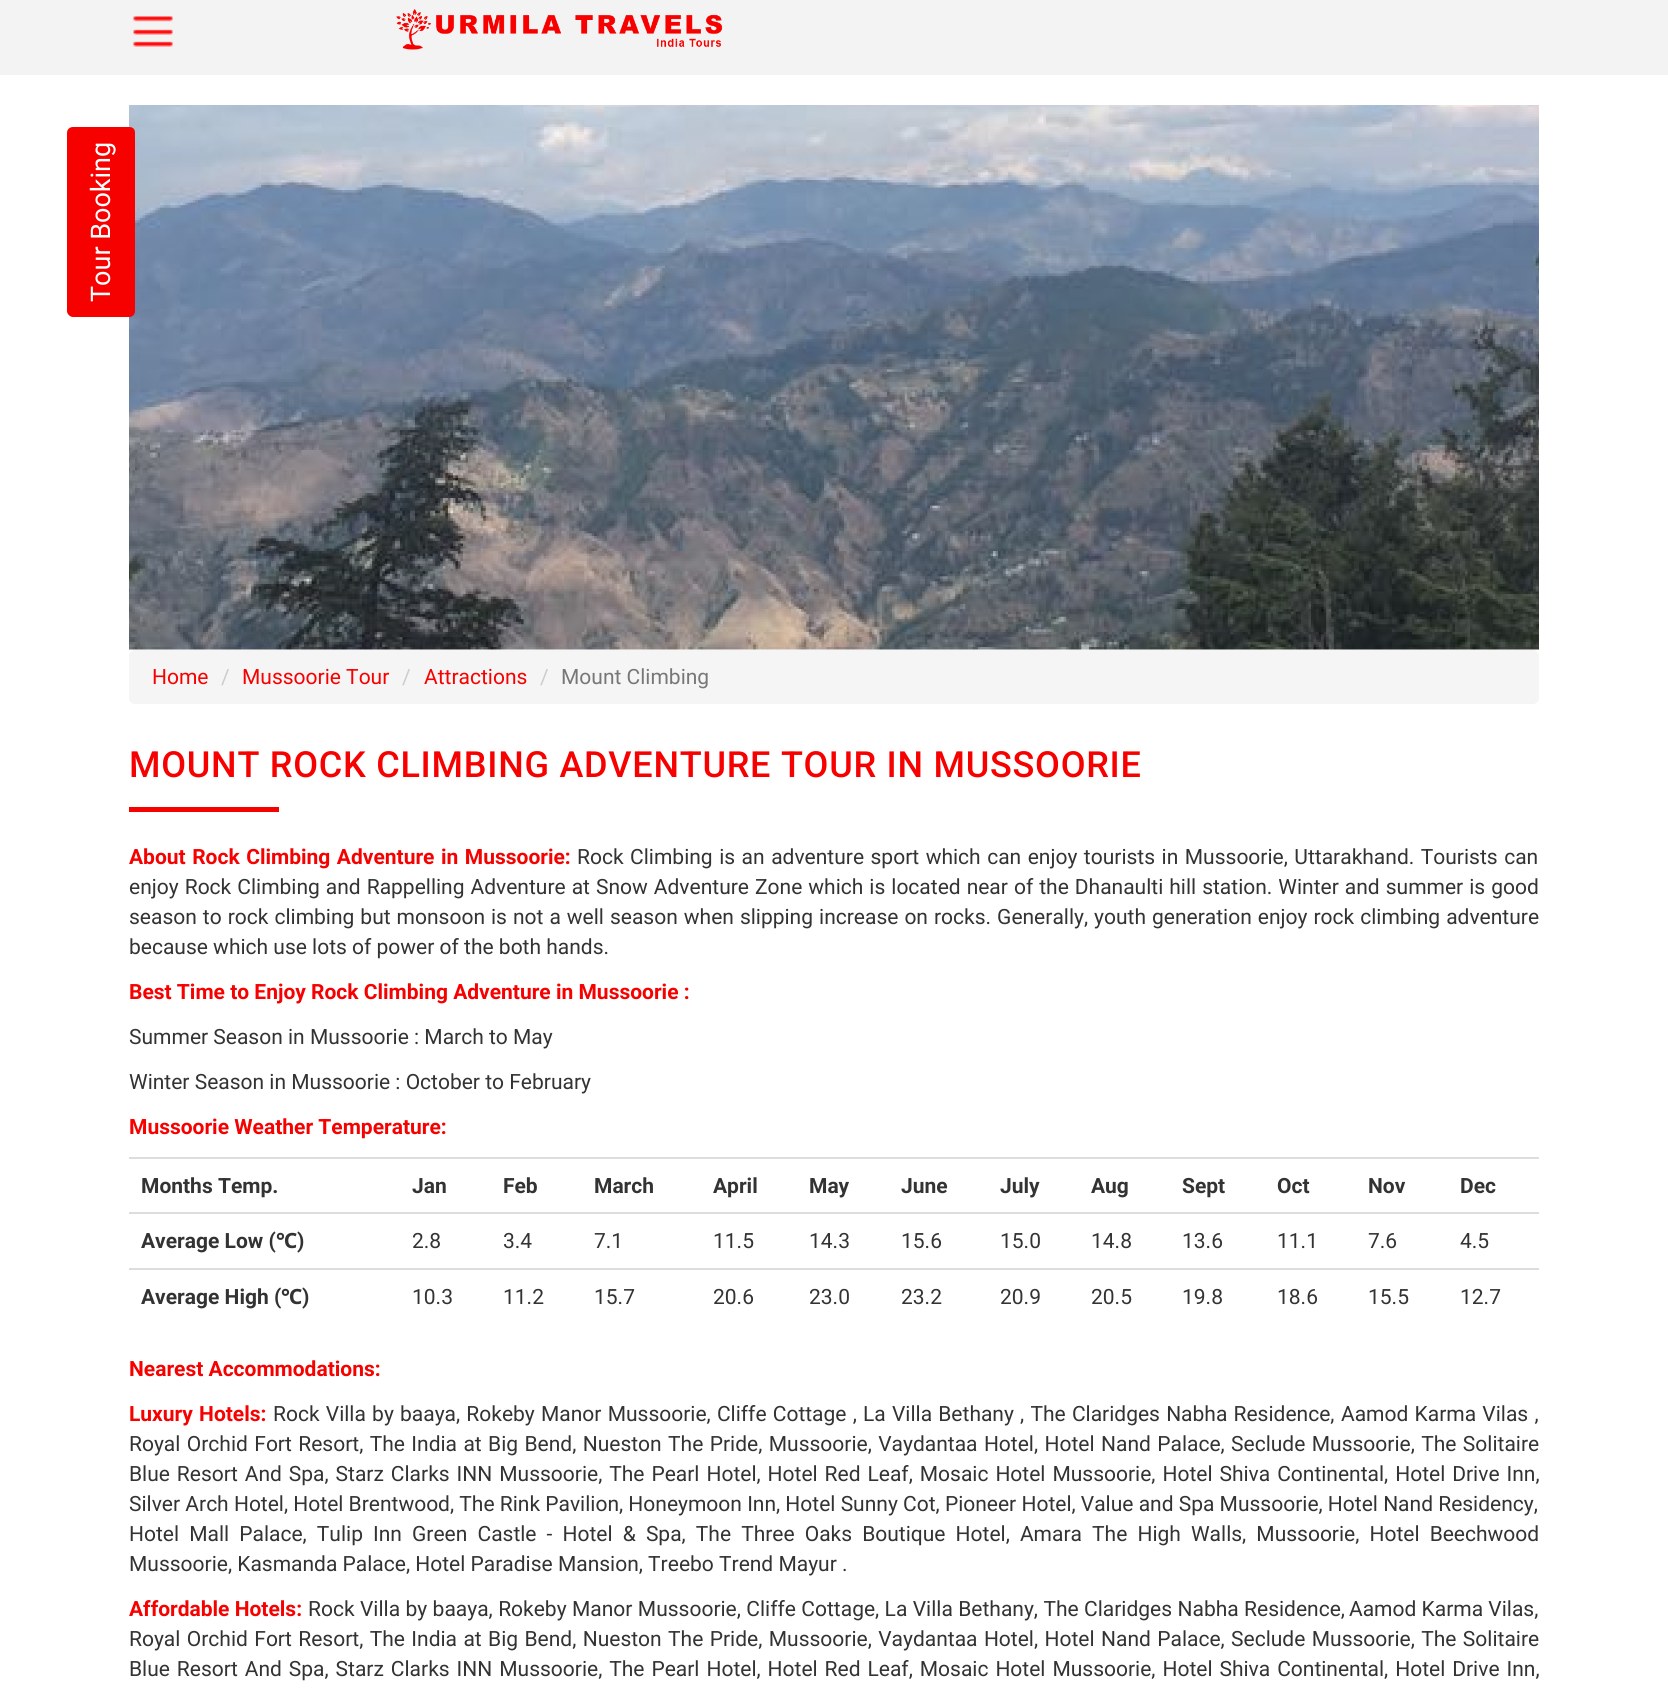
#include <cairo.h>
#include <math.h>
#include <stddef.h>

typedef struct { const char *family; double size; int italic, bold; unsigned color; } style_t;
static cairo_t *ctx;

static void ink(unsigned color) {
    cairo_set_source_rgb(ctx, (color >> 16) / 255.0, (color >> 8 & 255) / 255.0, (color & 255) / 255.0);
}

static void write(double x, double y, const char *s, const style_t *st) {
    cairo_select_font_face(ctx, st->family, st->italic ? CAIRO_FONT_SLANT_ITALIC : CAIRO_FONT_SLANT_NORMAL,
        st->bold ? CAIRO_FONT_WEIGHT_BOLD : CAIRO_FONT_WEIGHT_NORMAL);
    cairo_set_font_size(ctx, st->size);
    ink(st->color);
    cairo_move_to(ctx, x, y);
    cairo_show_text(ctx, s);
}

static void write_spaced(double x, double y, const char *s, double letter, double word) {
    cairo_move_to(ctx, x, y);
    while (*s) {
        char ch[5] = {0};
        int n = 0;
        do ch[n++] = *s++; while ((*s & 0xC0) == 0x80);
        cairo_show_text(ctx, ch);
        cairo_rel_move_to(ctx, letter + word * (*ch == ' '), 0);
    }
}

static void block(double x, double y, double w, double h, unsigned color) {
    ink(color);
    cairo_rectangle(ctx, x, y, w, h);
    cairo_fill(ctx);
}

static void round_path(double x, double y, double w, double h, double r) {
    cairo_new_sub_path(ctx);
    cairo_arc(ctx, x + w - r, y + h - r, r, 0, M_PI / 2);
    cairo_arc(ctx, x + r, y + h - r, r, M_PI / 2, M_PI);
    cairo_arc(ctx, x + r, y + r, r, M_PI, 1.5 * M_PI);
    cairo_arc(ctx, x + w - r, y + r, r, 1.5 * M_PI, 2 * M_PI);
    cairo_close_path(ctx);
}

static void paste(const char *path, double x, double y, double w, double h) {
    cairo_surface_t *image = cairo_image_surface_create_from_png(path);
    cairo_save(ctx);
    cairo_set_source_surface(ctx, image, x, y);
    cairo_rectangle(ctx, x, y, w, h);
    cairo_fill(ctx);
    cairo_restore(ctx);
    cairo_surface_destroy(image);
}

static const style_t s1 = {"Roboto", 27, 0, 0, 0xffffff};
static const style_t s2 = {"Roboto", 21, 0, 0, 0xf70000};
static const style_t s3 = {"Roboto", 21, 0, 0, 0xcccccc};
static const style_t s4 = {"Roboto", 21, 0, 0, 0x777777};
static const style_t s5 = {"Roboto", 21, 0, 0, 0x333333};
static const style_t s6 = {"Roboto", 21, 0, 1, 0xf70000};
static const style_t s7 = {"Roboto", 21, 0, 1, 0x333333};
static const style_t s8 = {"Noto Sans", 21, 0, 1, 0x333333};

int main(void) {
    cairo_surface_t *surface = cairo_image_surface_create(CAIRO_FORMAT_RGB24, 1668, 1696);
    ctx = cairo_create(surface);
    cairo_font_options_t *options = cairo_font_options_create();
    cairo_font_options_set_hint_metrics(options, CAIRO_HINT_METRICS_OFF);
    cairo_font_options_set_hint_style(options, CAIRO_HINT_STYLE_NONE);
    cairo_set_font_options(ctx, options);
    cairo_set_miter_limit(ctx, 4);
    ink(0xffffff);
    cairo_paint(ctx);
    block(0, 0, 1668, 75, 0xf3f3f3);
    paste("pic1.png", 133, 16, 40, 31);
    paste("pic2.png", 396, 9, 327, 41);
    paste("pic3.png", 129, 105, 1410, 545);
    ink(0xf70000);
    cairo_new_path(ctx);
    cairo_move_to(ctx, 67, 311);
    cairo_line_to(ctx, 67, 133);
    cairo_curve_to(ctx, 67, 129, 70, 127, 73, 127);
    cairo_line_to(ctx, 129, 127);
    cairo_curve_to(ctx, 133, 127, 135, 129, 135, 133);
    cairo_line_to(ctx, 135, 311);
    cairo_curve_to(ctx, 135, 314, 133, 317, 129, 317);
    cairo_line_to(ctx, 73, 317);
    cairo_curve_to(ctx, 70, 317, 67, 314, 67, 311);
    cairo_close_path(ctx);
    cairo_fill(ctx);
    cairo_save(ctx);
    cairo_translate(ctx, 110, 302);
    cairo_rotate(ctx, -90 * M_PI / 180);
    write(0, 0, "Tour Booking", &s1);
    cairo_restore(ctx);
    ink(0xf5f5f5);
    round_path(129, 650, 1410, 54, 6);
    cairo_fill(ctx);
    write(152, 684, "Home", &s2);
    write(221, 684, "/", &s3);
    write(242, 684, "Mussoorie Tour", &s2);
    write(402, 684, "/", &s3);
    write(424, 684, "Attractions", &s2);
    write(540, 684, "/", &s3);
    write(561, 684, "Mount Climbing", &s4);
    cairo_select_font_face(ctx, "Roboto Medium", CAIRO_FONT_SLANT_NORMAL, CAIRO_FONT_WEIGHT_NORMAL);
    cairo_set_font_size(ctx, 36);
    ink(0xf70000);
    write_spaced(129, 777, "MOUNT ROCK CLIMBING ADVENTURE TOUR IN MUSSOORIE", 0.75, 0);
    block(129, 807, 150, 5, 0xf70000);
    cairo_select_font_face(ctx, "Roboto", CAIRO_FONT_SLANT_NORMAL, CAIRO_FONT_WEIGHT_BOLD);
    cairo_set_font_size(ctx, 21);
    write_spaced(129, 864, "About Rock Climbing Adventure in Mussoorie:", 0, 1.3);
    cairo_select_font_face(ctx, "Roboto", CAIRO_FONT_SLANT_NORMAL, CAIRO_FONT_WEIGHT_NORMAL);
    ink(0x333333);
    write_spaced(577, 864, "Rock Climbing is an adventure sport which can enjoy tourists in Mussoorie, Uttarakhand. Tourists can", 0, 1.3);
    write_spaced(129, 894, "enjoy Rock Climbing and Rappelling Adventure at Snow Adventure Zone which is located near of the Dhanaulti hill station. Winter and summer is good", 0, 0.8);
    write_spaced(129, 924, "season to rock climbing but monsoon is not a well season when slipping increase on rocks. Generally, youth generation enjoy rock climbing adventure", 0, 0.8);
    write(129, 954, "because which use lots of power of the both hands.", &s5);
    write(129, 999, "Best Time to Enjoy Rock Climbing Adventure in Mussoorie :", &s6);
    write(129, 1044, "Summer Season in Mussoorie : March to May", &s5);
    write(129, 1089, "Winter Season in Mussoorie : October to February", &s5);
    write(129, 1134, "Mussoorie Weather Temperature:", &s6);
    write(141, 1193, "Months Temp.", &s7);
    write(412, 1193, "Jan", &s7);
    write(503, 1193, "Feb", &s7);
    write(594, 1193, "March", &s7);
    write(713, 1193, "April", &s7);
    write(809, 1193, "May", &s7);
    write(901, 1193, "June", &s7);
    write(1000, 1193, "July", &s7);
    write(1091, 1193, "Aug", &s7);
    write(1182, 1193, "Sept", &s7);
    write(1277, 1193, "Oct", &s7);
    write(1368, 1193, "Nov", &s7);
    block(129, 1157, 1410, 2, 0xdddddd);
    write(1460, 1193, "Dec", &s7);
    write(141, 1248, "Average Low (", &s7);
    write(276, 1248, "℃", &s8);
    write(297, 1248, ")", &s7);
    write(412, 1248, "2.8", &s5);
    write(503, 1248, "3.4", &s5);
    write(594, 1248, "7.1", &s5);
    write(713, 1248, "11.5", &s5);
    write(809, 1248, "14.3", &s5);
    write(901, 1248, "15.6", &s5);
    write(1000, 1248, "15.0", &s5);
    write(1091, 1248, "14.8", &s5);
    write(1182, 1248, "13.6", &s5);
    write(1277, 1248, "11.1", &s5);
    write(1368, 1248, "7.6", &s5);
    block(129, 1212, 1410, 2, 0xdddddd);
    write(1460, 1248, "4.5", &s5);
    write(141, 1304, "Average High (", &s7);
    write(281, 1304, "℃", &s8);
    write(302, 1304, ")", &s7);
    write(412, 1304, "10.3", &s5);
    write(503, 1304, "11.2", &s5);
    write(594, 1304, "15.7", &s5);
    write(713, 1304, "20.6", &s5);
    write(809, 1304, "23.0", &s5);
    write(901, 1304, "23.2", &s5);
    write(1000, 1304, "20.9", &s5);
    write(1091, 1304, "20.5", &s5);
    write(1182, 1304, "19.8", &s5);
    write(1277, 1304, "18.6", &s5);
    write(1368, 1304, "15.5", &s5);
    block(129, 1268, 1410, 2, 0xdddddd);
    write(1460, 1304, "12.7", &s5);
    write(129, 1376, "Nearest Accommodations:", &s6);
    write_spaced(129, 1421, "Luxury Hotels:", 0, 1);
    cairo_select_font_face(ctx, "Roboto", CAIRO_FONT_SLANT_NORMAL, CAIRO_FONT_WEIGHT_NORMAL);
    ink(0x333333);
    write_spaced(273, 1421, "Rock Villa by baaya, Rokeby Manor Mussoorie, Cliffe Cottage , La Villa Bethany , The Claridges Nabha Residence,", 0, 1);
    write_spaced(1341, 1421, "Aamod Karma Vilas ,", 0, 1);
    write_spaced(129, 1451, "Royal Orchid Fort Resort, The India at Big Bend, Nueston The Pride, Mussoorie, Vaydantaa Hotel, Hotel Nand Palace, Seclude Mussoorie, The Solitaire", 0, 1.2);
    write_spaced(129, 1481, "Blue Resort And Spa, Starz Clarks INN Mussoorie, The Pearl Hotel, Hotel Red Leaf, Mosaic Hotel Mussoorie, Hotel Shiva Continental, Hotel Drive Inn,", 0, 1.75);
    write(129, 1511, "Silver Arch Hotel, Hotel Brentwood, The Rink Pavilion, Honeymoon Inn, Hotel Sunny Cot, Pioneer Hotel, Value and Spa Mussoorie, Hotel Nand Residency,", &s5);
    write_spaced(129, 1541, "Hotel Mall Palace, Tulip Inn Green Castle - Hotel & Spa, The Three Oaks Boutique Hotel, Amara The High Walls, Mussoorie, Hotel Beechwood", 0, 4.9);
    write(129, 1571, "Mussoorie, Kasmanda Palace, Hotel Paradise Mansion, Treebo Trend Mayur .", &s5);
    write(129, 1616, "Affordable Hotels:", &s6);
    cairo_select_font_face(ctx, "Roboto", CAIRO_FONT_SLANT_NORMAL, CAIRO_FONT_WEIGHT_NORMAL);
    ink(0x333333);
    write_spaced(308, 1616, "Rock Villa by baaya, Rokeby Manor Mussoorie, Cliffe Cottage, La Villa Bethany, The Claridges Nabha Residence,", 0, 0.2);
    write(1349, 1616, "Aamod Karma Vilas,", &s5);
    write_spaced(129, 1646, "Royal Orchid Fort Resort, The India at Big Bend, Nueston The Pride, Mussoorie, Vaydantaa Hotel, Hotel Nand Palace, Seclude Mussoorie, The Solitaire", 0, 1.2);
    write_spaced(129, 1676, "Blue Resort And Spa, Starz Clarks INN Mussoorie, The Pearl Hotel, Hotel Red Leaf, Mosaic Hotel Mussoorie, Hotel Shiva Continental, Hotel Drive Inn,", 0, 1.75);
    cairo_surface_write_to_png(surface, "screenshot.png");
    cairo_font_options_destroy(options);
    cairo_destroy(ctx);
    cairo_surface_destroy(surface);
    return 0;
}
